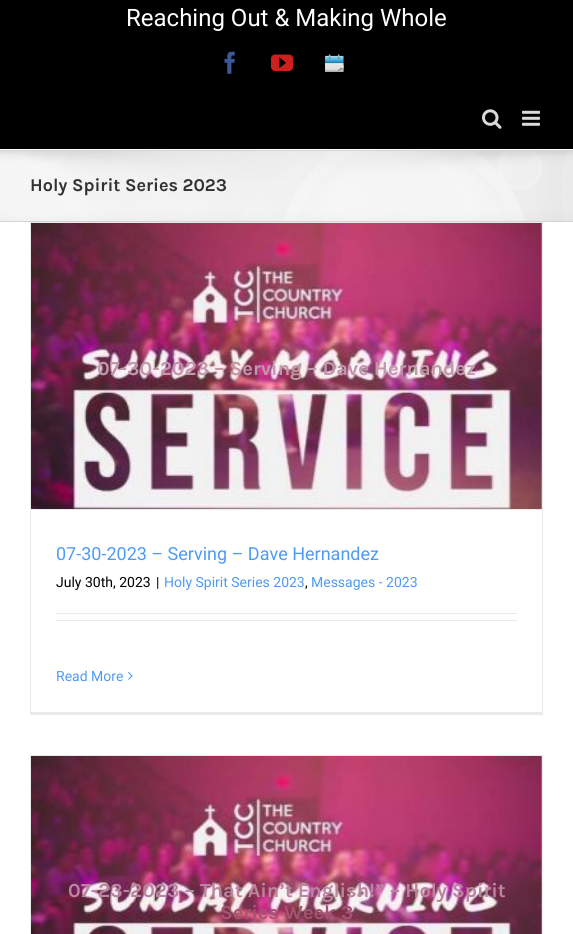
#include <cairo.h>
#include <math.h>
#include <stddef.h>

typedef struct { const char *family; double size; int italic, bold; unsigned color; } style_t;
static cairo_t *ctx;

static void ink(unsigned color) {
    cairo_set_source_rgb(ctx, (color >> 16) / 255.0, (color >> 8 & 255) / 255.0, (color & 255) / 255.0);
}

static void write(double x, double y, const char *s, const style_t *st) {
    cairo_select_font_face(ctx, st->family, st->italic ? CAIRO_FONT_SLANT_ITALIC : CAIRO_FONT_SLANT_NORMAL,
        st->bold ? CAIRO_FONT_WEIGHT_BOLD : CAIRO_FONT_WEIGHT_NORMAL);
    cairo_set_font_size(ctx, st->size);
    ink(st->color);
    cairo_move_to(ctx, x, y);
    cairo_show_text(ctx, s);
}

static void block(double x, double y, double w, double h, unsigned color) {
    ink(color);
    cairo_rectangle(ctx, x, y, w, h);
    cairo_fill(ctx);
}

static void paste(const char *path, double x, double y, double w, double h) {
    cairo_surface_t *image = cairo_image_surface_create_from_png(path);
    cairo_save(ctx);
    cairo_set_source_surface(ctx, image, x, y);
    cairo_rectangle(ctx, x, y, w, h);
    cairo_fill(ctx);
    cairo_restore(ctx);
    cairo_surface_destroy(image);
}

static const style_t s1 = {"Roboto", 24, 0, 0, 0xffffff};
static const style_t s2 = {"Karla", 18, 0, 1, 0x333333};
static const style_t s3 = {"Karla", 20, 0, 1, 0xc197aa};
static const style_t s4 = {"Roboto", 18, 0, 0, 0x4d9bf4};
static const style_t s5 = {"Roboto", 14, 0, 0, 0x000000};
static const style_t s6 = {"Roboto", 14, 0, 0, 0x4d9bf4};
static const style_t s7 = {"Karla", 20, 0, 1, 0xb9859f};
static const style_t s8 = {"Karla", 20, 0, 1, 0xa45470};

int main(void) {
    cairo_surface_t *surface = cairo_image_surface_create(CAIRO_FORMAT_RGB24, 573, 934);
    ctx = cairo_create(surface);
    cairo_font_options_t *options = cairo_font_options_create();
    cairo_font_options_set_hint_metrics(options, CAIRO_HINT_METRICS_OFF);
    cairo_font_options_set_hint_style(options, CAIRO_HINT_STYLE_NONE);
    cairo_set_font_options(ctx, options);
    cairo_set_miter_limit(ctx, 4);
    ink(0xffffff);
    cairo_paint(ctx);
    block(0, 0, 573, 149, 0x000000);
    write(126, 26, "Reaching Out & Making Whole", &s1);
    paste("pic1.png", 224, 51, 11, 23);
    paste("pic2.png", 271, 54, 22, 17);
    paste("pic3.png", 325, 54, 19, 18);
    paste("pic4.png", 482, 109, 20, 20);
    paste("pic5.png", 522, 110, 18, 16);
    block(0, 151, 573, 70, 0xf6f6f6);
    paste("pic6.png", 0, 151, 573, 70);
    block(0, 150, 573, 1, 0xd2d3d4);
    block(0, 221, 573, 1, 0xd2d3d4);
    write(30, 191, "Holy Spirit Series 2023", &s2);
    block(30, 222, 513, 1, 0xebeaea);
    block(542, 222, 1, 493, 0xebeaea);
    block(30, 712, 513, 3, 0xebeaea);
    block(30, 222, 1, 493, 0xebeaea);
    block(31, 509, 511, 1, 0xebeaea);
    paste("pic7.png", 31, 223, 511, 286);
    write(97, 375, "07-30-2023 – Serving – Dave Hernandez", &s3);
    write(56, 560, "07-30-2023 – Serving – Dave Hernandez", &s4);
    write(56, 587, "July 30th, 2023", &s5);
    write(156, 587, "|", &s5);
    write(164, 587, "Holy Spirit Series 2023", &s6);
    write(305, 587, ",", &s5);
    write(311, 587, "Messages - 2023", &s6);
    block(56, 613, 461, 1, 0xebeaea);
    block(56, 620, 461, 1, 0xebeaea);
    write(56, 681, "Read More", &s6);
    paste("pic8.png", 128, 672, 5, 8);
    block(30, 755, 513, 1, 0xebeaea);
    block(542, 755, 1, 179, 0xebeaea);
    block(30, 755, 1, 179, 0xebeaea);
    paste("pic9.png", 31, 756, 511, 178);
    write(68, 897, "07-23-2023 – That Ain’t English!” – Holy Spirit", &s7);
    write(220, 919, "Series Week 3", &s8);
    cairo_surface_write_to_png(surface, "screenshot.png");
    cairo_font_options_destroy(options);
    cairo_destroy(ctx);
    cairo_surface_destroy(surface);
    return 0;
}
